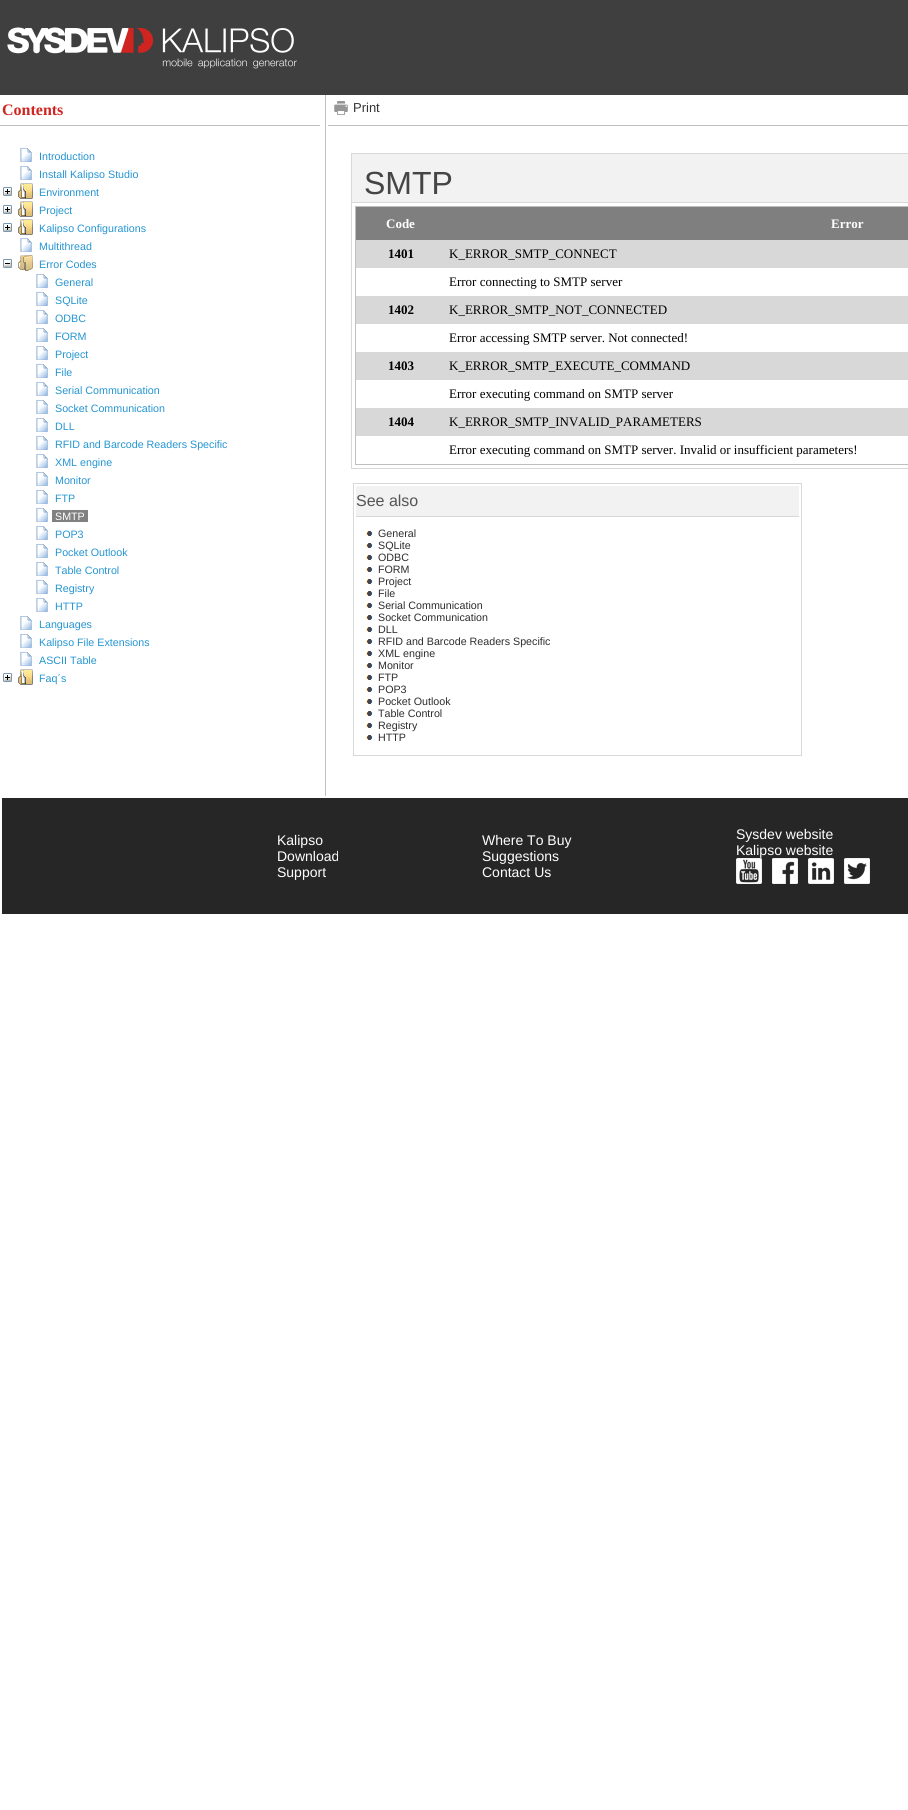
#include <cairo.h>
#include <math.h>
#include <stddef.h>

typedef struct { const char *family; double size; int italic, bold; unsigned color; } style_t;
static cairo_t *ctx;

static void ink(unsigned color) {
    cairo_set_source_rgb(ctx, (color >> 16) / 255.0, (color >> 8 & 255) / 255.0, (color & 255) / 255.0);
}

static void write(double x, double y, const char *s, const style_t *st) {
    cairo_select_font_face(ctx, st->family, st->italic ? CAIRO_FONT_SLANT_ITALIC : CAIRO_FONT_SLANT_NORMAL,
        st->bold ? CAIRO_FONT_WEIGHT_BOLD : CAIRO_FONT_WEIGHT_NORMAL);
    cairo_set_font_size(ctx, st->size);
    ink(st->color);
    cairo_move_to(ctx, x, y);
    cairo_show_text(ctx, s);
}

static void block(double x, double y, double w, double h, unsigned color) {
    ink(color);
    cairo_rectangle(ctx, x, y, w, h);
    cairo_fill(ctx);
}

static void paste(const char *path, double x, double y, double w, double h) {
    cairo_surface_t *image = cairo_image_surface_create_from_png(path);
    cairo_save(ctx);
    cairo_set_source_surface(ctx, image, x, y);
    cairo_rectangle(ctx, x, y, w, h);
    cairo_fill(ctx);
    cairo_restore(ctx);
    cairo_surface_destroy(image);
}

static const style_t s1 = {"Liberation Serif", 16, 0, 1, 0xd02421};
static const style_t s2 = {"Liberation Sans", 10.7, 0, 0, 0x2495d2};
static const style_t s3 = {"Liberation Sans", 10.7, 0, 0, 0xffffff};
static const style_t s4 = {"Liberation Sans", 13, 0, 0, 0x333333};
static const style_t s5 = {"Liberation Sans", 32, 0, 0, 0x454545};
static const style_t s6 = {"Liberation Serif", 13, 0, 1, 0xffffff};
static const style_t s7 = {"Liberation Serif", 13, 0, 1, 0x000000};
static const style_t s8 = {"Liberation Serif", 13, 0, 0, 0x000000};
static const style_t s9 = {"Liberation Sans", 16, 0, 0, 0x555555};
static const style_t s10 = {"Liberation Sans", 10.7, 0, 0, 0x2d2d2d};
static const style_t s11 = {"Liberation Sans", 14, 0, 0, 0xffffff};

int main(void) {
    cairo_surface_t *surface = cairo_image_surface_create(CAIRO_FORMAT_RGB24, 908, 1810);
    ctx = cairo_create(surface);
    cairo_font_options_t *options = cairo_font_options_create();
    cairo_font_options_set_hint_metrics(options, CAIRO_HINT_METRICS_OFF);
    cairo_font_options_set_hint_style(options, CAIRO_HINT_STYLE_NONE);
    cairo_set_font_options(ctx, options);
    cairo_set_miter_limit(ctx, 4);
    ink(0xffffff);
    cairo_paint(ctx);
    block(0, 0, 908, 95, 0x3f3f3f);
    paste("pic1.png", 7, 27, 290, 42);
    write(2, 115, "Contents", &s1);
    block(0, 125, 320, 1, 0xc0c0c0);
    paste("pic2.png", 20, 148, 12, 14);
    write(39, 160, "Introduction", &s2);
    paste("pic2.png", 20, 166, 12, 14);
    write(39, 178, "Install Kalipso Studio", &s2);
    paste("pic3.png", 3, 187, 9, 9);
    paste("pic4.png", 18, 183, 15, 16);
    write(39, 196, "Environment", &s2);
    paste("pic3.png", 3, 205, 9, 9);
    paste("pic4.png", 18, 201, 15, 16);
    write(39, 214, "Project", &s2);
    paste("pic3.png", 3, 223, 9, 9);
    paste("pic4.png", 18, 219, 15, 16);
    write(39, 232, "Kalipso Configurations", &s2);
    paste("pic2.png", 20, 238, 12, 14);
    write(39, 250, "Multithread", &s2);
    paste("pic5.png", 3, 259, 9, 9);
    paste("pic6.png", 18, 255, 15, 16);
    write(39, 268, "Error Codes", &s2);
    paste("pic2.png", 36, 274, 12, 14);
    write(55, 286, "General", &s2);
    paste("pic2.png", 36, 292, 12, 14);
    write(55, 304, "SQLite", &s2);
    paste("pic2.png", 36, 310, 12, 14);
    write(55, 322, "ODBC", &s2);
    paste("pic2.png", 36, 328, 12, 14);
    write(55, 340, "FORM", &s2);
    paste("pic2.png", 36, 346, 12, 14);
    write(55, 358, "Project", &s2);
    paste("pic2.png", 36, 364, 12, 14);
    write(55, 376, "File", &s2);
    paste("pic2.png", 36, 382, 12, 14);
    write(55, 394, "Serial Communication", &s2);
    paste("pic2.png", 36, 400, 12, 14);
    write(55, 412, "Socket Communication", &s2);
    paste("pic2.png", 36, 418, 12, 14);
    write(55, 430, "DLL", &s2);
    paste("pic2.png", 36, 436, 12, 14);
    write(55, 448, "RFID and Barcode Readers Specific", &s2);
    paste("pic2.png", 36, 454, 12, 14);
    write(55, 466, "XML engine", &s2);
    paste("pic2.png", 36, 472, 12, 14);
    write(55, 484, "Monitor", &s2);
    paste("pic2.png", 36, 490, 12, 14);
    write(55, 502, "FTP", &s2);
    paste("pic2.png", 36, 508, 12, 14);
    block(52, 510, 36, 12, 0x808080);
    write(55, 520, "SMTP", &s3);
    paste("pic2.png", 36, 526, 12, 14);
    write(55, 538, "POP3", &s2);
    paste("pic2.png", 36, 544, 12, 14);
    write(55, 556, "Pocket Outlook", &s2);
    paste("pic2.png", 36, 562, 12, 14);
    write(55, 574, "Table Control", &s2);
    paste("pic2.png", 36, 580, 12, 14);
    write(55, 592, "Registry", &s2);
    paste("pic2.png", 36, 598, 12, 14);
    write(55, 610, "HTTP", &s2);
    paste("pic2.png", 20, 616, 12, 14);
    write(39, 628, "Languages", &s2);
    paste("pic2.png", 20, 634, 12, 14);
    write(39, 646, "Kalipso File Extensions", &s2);
    paste("pic2.png", 20, 652, 12, 14);
    write(39, 664, "ASCII Table", &s2);
    paste("pic3.png", 3, 673, 9, 9);
    paste("pic4.png", 18, 669, 15, 16);
    write(39, 682, "Faq´s", &s2);
    block(325, 95, 1, 701, 0xc0c0c0);
    block(328, 125, 580, 1, 0xc0c0c0);
    paste("pic7.png", 334, 101, 14, 14);
    write(353, 112, "Print", &s4);
    cairo_rectangle(ctx, 351.5, 153.5, 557, 315);
    ink(0xd8d8d8);
    cairo_set_line_width(ctx, 1);
    cairo_stroke(ctx);
    block(352, 154, 556, 48, 0xf2f2f2);
    block(352, 202, 556, 1, 0xd8d8d8);
    write(364, 194, "SMTP", &s5);
    cairo_rectangle(ctx, 355.5, 206.5, 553, 258);
    ink(0xbfbfbf);
    cairo_stroke(ctx);
    block(356, 207, 552, 33, 0x7f7f7f);
    write(386, 228, "Code", &s6);
    write(831, 228, "Error", &s6);
    block(356, 240, 552, 28, 0xd8d8d8);
    write(388, 258, "1401", &s7);
    write(449, 258, "K_ERROR_SMTP_CONNECT", &s8);
    write(449, 286, "Error connecting to SMTP server", &s8);
    block(356, 296, 552, 28, 0xd8d8d8);
    write(388, 314, "1402", &s7);
    write(449, 314, "K_ERROR_SMTP_NOT_CONNECTED", &s8);
    write(449, 342, "Error accessing SMTP server. Not connected!", &s8);
    block(356, 352, 552, 28, 0xd8d8d8);
    write(388, 370, "1403", &s7);
    write(449, 370, "K_ERROR_SMTP_EXECUTE_COMMAND", &s8);
    write(449, 398, "Error executing command on SMTP server", &s8);
    block(356, 408, 552, 28, 0xd8d8d8);
    write(388, 426, "1404", &s7);
    write(449, 426, "K_ERROR_SMTP_INVALID_PARAMETERS", &s8);
    write(449, 454, "Error executing command on SMTP server. Invalid or insufficient parameters!", &s8);
    cairo_rectangle(ctx, 353.5, 483.5, 448, 272);
    ink(0xd8d8d8);
    cairo_stroke(ctx);
    block(356, 486, 443, 30, 0xf2f2f2);
    block(356, 516, 443, 1, 0xd8d8d8);
    write(356, 506, "See also", &s9);
    paste("pic8.png", 366, 531, 7, 5);
    write(378, 537, "General", &s10);
    paste("pic8.png", 366, 543, 7, 5);
    write(378, 549, "SQLite", &s10);
    paste("pic8.png", 366, 555, 7, 5);
    write(378, 561, "ODBC", &s10);
    paste("pic8.png", 366, 567, 7, 5);
    write(378, 573, "FORM", &s10);
    paste("pic8.png", 366, 579, 7, 5);
    write(378, 585, "Project", &s10);
    paste("pic8.png", 366, 591, 7, 5);
    write(378, 597, "File", &s10);
    paste("pic8.png", 366, 603, 7, 5);
    write(378, 609, "Serial Communication", &s10);
    paste("pic8.png", 366, 615, 7, 5);
    write(378, 621, "Socket Communication", &s10);
    paste("pic8.png", 366, 627, 7, 5);
    write(378, 633, "DLL", &s10);
    paste("pic8.png", 366, 639, 7, 5);
    write(378, 645, "RFID and Barcode Readers Specific", &s10);
    paste("pic8.png", 366, 651, 7, 5);
    write(378, 657, "XML engine", &s10);
    paste("pic8.png", 366, 663, 7, 5);
    write(378, 669, "Monitor", &s10);
    paste("pic8.png", 366, 675, 7, 5);
    write(378, 681, "FTP", &s10);
    paste("pic8.png", 366, 687, 7, 5);
    write(378, 693, "POP3", &s10);
    paste("pic8.png", 366, 699, 7, 5);
    write(378, 705, "Pocket Outlook", &s10);
    paste("pic8.png", 366, 711, 7, 5);
    write(378, 717, "Table Control", &s10);
    paste("pic8.png", 366, 723, 7, 5);
    write(378, 729, "Registry", &s10);
    paste("pic8.png", 366, 735, 7, 5);
    write(378, 741, "HTTP", &s10);
    block(2, 798, 906, 116, 0x262626);
    write(277, 845, "Kalipso", &s11);
    write(277, 861, "Download", &s11);
    write(277, 877, "Support", &s11);
    write(482, 845, "Where To Buy", &s11);
    write(482, 861, "Suggestions", &s11);
    write(482, 877, "Contact Us", &s11);
    write(736, 839, "Sysdev website", &s11);
    write(736, 855, "Kalipso website", &s11);
    paste("pic9.png", 736, 858, 26, 26);
    paste("pic10.png", 772, 858, 26, 26);
    paste("pic11.png", 808, 858, 26, 26);
    paste("pic12.png", 844, 858, 26, 26);
    cairo_surface_write_to_png(surface, "screenshot.png");
    cairo_font_options_destroy(options);
    cairo_destroy(ctx);
    cairo_surface_destroy(surface);
    return 0;
}
